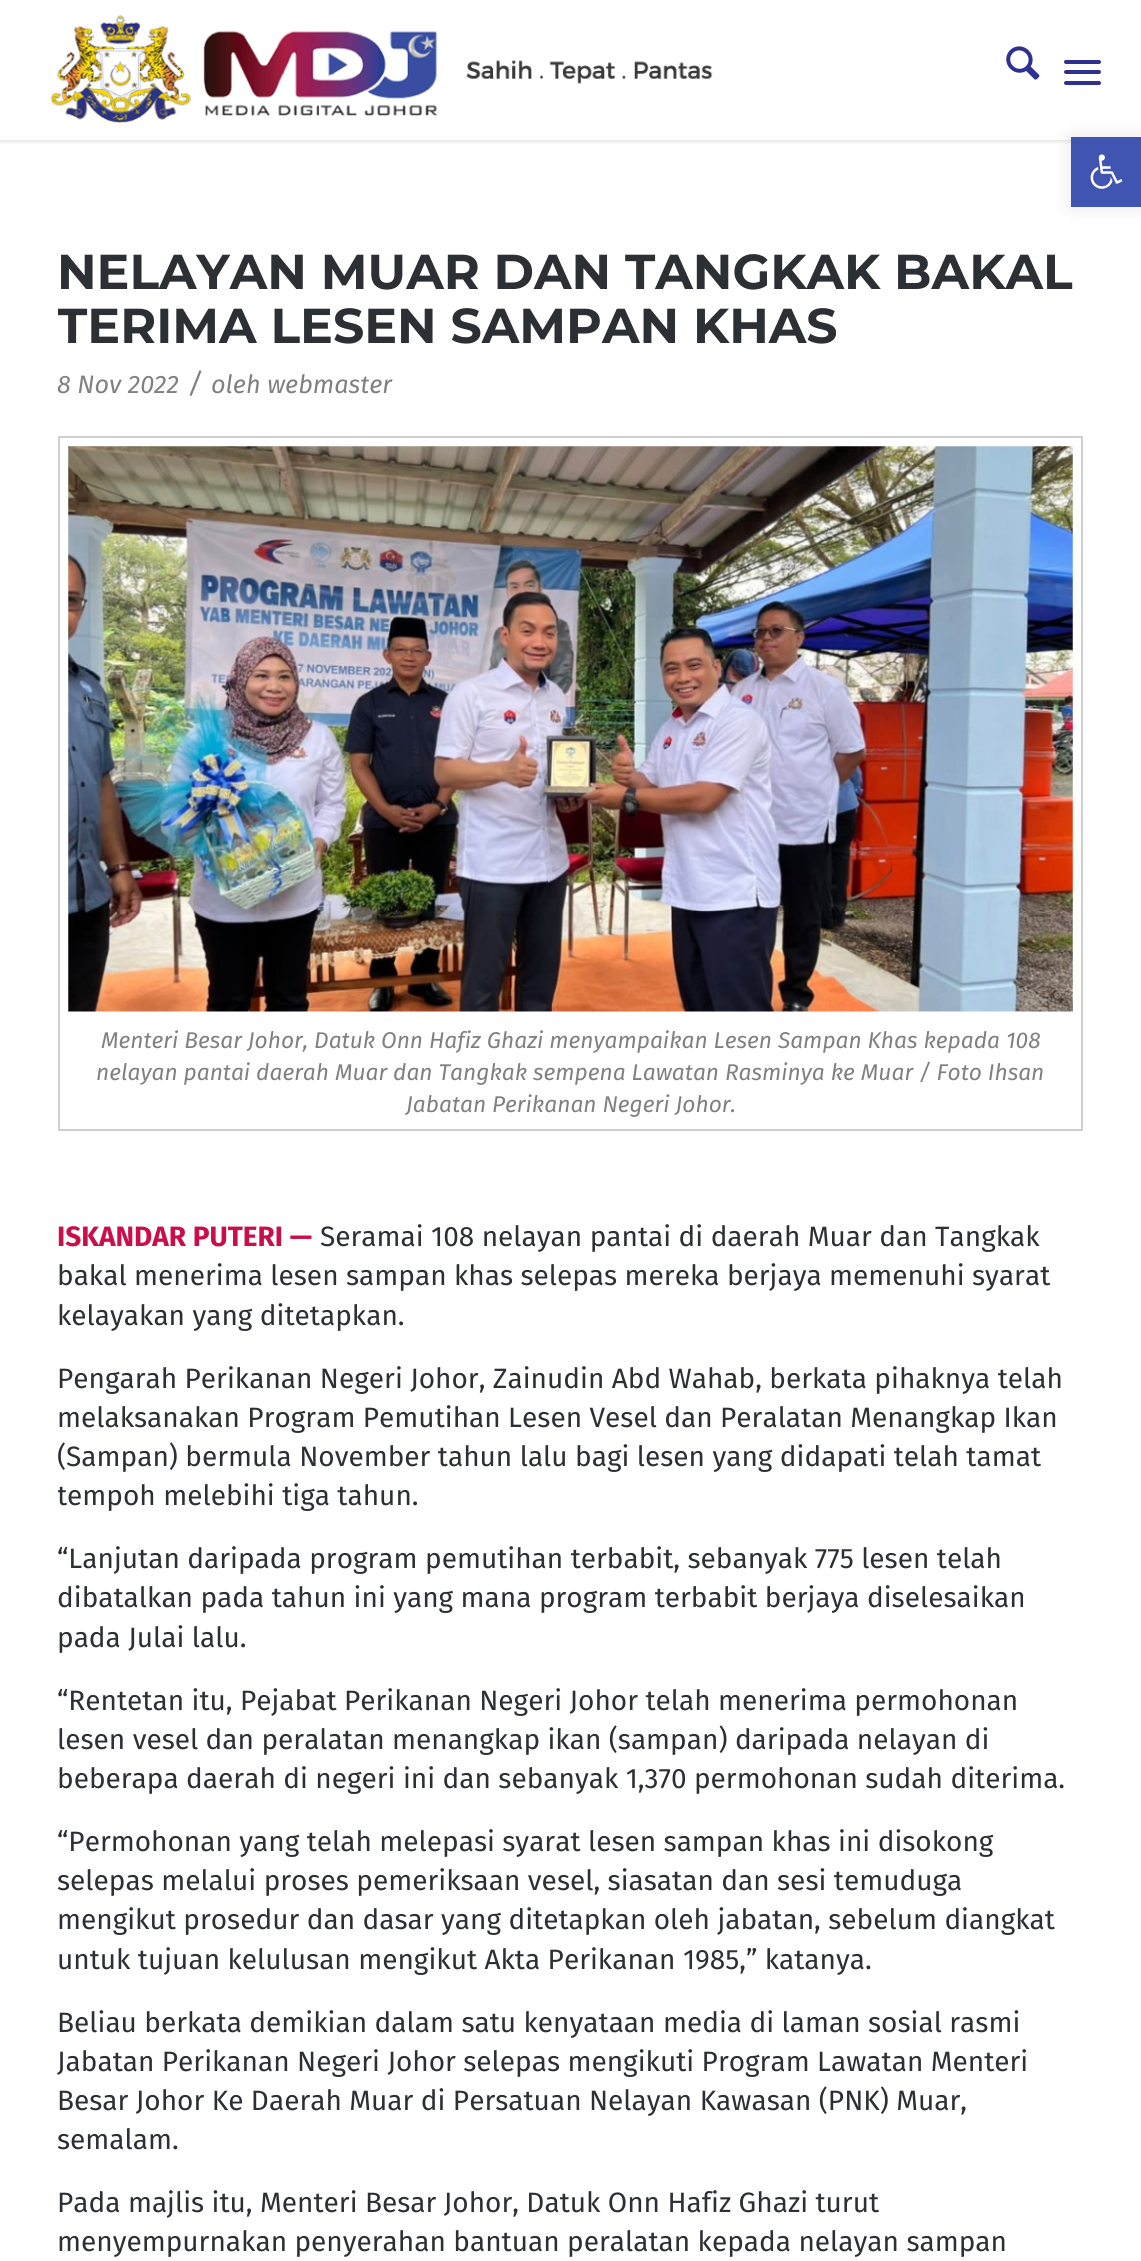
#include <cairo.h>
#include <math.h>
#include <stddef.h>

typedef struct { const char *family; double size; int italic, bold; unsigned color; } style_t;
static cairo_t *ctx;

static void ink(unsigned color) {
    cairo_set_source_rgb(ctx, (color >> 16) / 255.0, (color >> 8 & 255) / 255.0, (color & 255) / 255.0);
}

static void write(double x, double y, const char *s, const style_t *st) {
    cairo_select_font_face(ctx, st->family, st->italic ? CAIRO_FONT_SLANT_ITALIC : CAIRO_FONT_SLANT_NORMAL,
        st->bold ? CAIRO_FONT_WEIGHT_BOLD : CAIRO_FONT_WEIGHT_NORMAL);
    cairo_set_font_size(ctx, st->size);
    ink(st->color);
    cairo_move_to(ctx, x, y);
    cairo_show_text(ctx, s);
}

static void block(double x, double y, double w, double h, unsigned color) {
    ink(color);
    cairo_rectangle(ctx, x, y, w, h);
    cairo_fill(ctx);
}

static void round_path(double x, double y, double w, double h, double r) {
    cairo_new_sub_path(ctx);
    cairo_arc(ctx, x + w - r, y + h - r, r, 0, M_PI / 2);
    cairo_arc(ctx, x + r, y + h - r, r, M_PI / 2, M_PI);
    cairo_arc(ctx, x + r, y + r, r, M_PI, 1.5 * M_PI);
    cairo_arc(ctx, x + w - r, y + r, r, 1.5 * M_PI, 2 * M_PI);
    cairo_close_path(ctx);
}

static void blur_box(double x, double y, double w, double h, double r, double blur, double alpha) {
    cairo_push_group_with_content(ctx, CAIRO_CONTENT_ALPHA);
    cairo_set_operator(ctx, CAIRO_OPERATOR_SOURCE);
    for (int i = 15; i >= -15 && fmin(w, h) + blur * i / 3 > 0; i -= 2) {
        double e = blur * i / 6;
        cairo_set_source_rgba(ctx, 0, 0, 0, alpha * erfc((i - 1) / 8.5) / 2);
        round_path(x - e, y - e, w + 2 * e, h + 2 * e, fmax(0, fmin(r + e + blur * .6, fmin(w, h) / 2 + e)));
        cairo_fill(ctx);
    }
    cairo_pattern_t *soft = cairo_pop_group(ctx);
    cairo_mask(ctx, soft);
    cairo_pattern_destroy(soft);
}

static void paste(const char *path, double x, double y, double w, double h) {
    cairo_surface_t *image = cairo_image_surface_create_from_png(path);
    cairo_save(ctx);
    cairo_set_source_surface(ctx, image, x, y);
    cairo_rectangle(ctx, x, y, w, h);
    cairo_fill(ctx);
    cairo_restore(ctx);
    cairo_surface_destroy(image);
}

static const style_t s1 = {"Montserrat", 49, 0, 1, 0x2c2f33};
static const style_t s2 = {"Fira Sans", 25.25, 1, 0, 0x808080};
static const style_t s3 = {"Fira Sans", 28, 1, 0, 0x808080};
static const style_t s4 = {"Fira Sans", 22.75, 1, 0, 0x808080};
static const style_t s5 = {"Fira Sans", 28, 0, 1, 0xc90e49};
static const style_t s6 = {"Fira Sans", 28, 0, 0, 0x2c2f33};

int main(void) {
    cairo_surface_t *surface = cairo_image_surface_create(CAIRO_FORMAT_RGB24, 1141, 2261);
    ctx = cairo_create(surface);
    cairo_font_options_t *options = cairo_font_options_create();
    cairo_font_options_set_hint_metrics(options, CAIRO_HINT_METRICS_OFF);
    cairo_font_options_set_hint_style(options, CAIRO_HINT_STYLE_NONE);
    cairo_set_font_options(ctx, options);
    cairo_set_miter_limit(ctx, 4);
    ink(0xffffff);
    cairo_paint(ctx);
    ink(0x000000);
    blur_box(1071, 137, 70, 70, 0, 9, 0.1);
    cairo_save(ctx);
    cairo_rectangle(ctx, 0, 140, 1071, 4);
    cairo_clip(ctx);
    blur_box(-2, -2, 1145, 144, 0, 2, 0.1);
    cairo_restore(ctx);
    block(1071, 137, 70, 70, 0x4054b2);
    paste("pic1.png", 1090, 154, 33, 35);
    paste("pic2.png", 50, 14, 663, 109);
    paste("pic3.png", 1006, 46, 34, 34);
    ink(0x2e3192);
    round_path(1064, 70, 37, 4, 2);
    cairo_fill(ctx);
    round_path(1064, 60, 37, 4, 2);
    cairo_fill(ctx);
    round_path(1064, 81, 37, 4, 2);
    cairo_fill(ctx);
    write(57, 289, "NELAYAN MUAR DAN TANGKAK BAKAL", &s1);
    cairo_save(ctx);
    cairo_rectangle(ctx, 58, 245, 1025, 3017);
    cairo_clip(ctx);
    write(57, 343, "TERIMA LESEN SAMPAN KHAS", &s1);
    cairo_restore(ctx);
    write(57, 393, "8 Nov 2022", &s2);
    write(188, 393, "/", &s3);
    write(211, 393, "oleh webmaster", &s2);
    cairo_rectangle(ctx, 59, 437, 1023, 693);
    ink(0xcfcfcf);
    cairo_stroke(ctx);
    paste("pic4.png", 68, 446, 1005, 566);
    write(101, 1048, "Menteri Besar Johor, Datuk Onn Hafiz Ghazi menyampaikan Lesen Sampan Khas kepada 108", &s4);
    write(96, 1080, "nelayan pantai daerah Muar dan Tangkak sempena Lawatan Rasminya ke Muar / Foto Ihsan", &s4);
    write(406, 1112, "Jabatan Perikanan Negeri Johor.", &s4);
    write(57, 1246, "ISKANDAR PUTERI —", &s5);
    write(320, 1246, "Seramai 108 nelayan pantai di daerah Muar dan Tangkak", &s6);
    write(57, 1285, "bakal menerima lesen sampan khas selepas mereka berjaya memenuhi syarat", &s6);
    write(57, 1325, "kelayakan yang ditetapkan.", &s6);
    write(57, 1388, "Pengarah Perikanan Negeri Johor, Zainudin Abd Wahab, berkata pihaknya telah", &s6);
    write(57, 1427, "melaksanakan Program Pemutihan Lesen Vesel dan Peralatan Menangkap Ikan", &s6);
    write(57, 1466, "(Sampan) bermula November tahun lalu bagi lesen yang didapati telah tamat", &s6);
    cairo_save(ctx);
    cairo_rectangle(ctx, 58, 245, 1025, 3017);
    cairo_clip(ctx);
    write(57, 1505, "tempoh melebihi tiga tahun.", &s6);
    cairo_restore(ctx);
    write(57, 1568, "“Lanjutan daripada program pemutihan terbabit, sebanyak 775 lesen telah", &s6);
    write(57, 1607, "dibatalkan pada tahun ini yang mana program terbabit berjaya diselesaikan", &s6);
    write(57, 1647, "pada Julai lalu.", &s6);
    write(57, 1710, "“Rentetan itu, Pejabat Perikanan Negeri Johor telah menerima permohonan", &s6);
    write(57, 1749, "lesen vesel dan peralatan menangkap ikan (sampan) daripada nelayan di", &s6);
    write(57, 1788, "beberapa daerah di negeri ini dan sebanyak 1,370 permohonan sudah diterima.", &s6);
    write(57, 1851, "“Permohonan yang telah melepasi syarat lesen sampan khas ini disokong", &s6);
    write(57, 1890, "selepas melalui proses pemeriksaan vesel, siasatan dan sesi temuduga", &s6);
    write(57, 1929, "mengikut prosedur dan dasar yang ditetapkan oleh jabatan, sebelum diangkat", &s6);
    write(57, 1969, "untuk tujuan kelulusan mengikut Akta Perikanan 1985,” katanya.", &s6);
    write(57, 2032, "Beliau berkata demikian dalam satu kenyataan media di laman sosial rasmi", &s6);
    write(57, 2071, "Jabatan Perikanan Negeri Johor selepas mengikuti Program Lawatan Menteri", &s6);
    write(57, 2110, "Besar Johor Ke Daerah Muar di Persatuan Nelayan Kawasan (PNK) Muar,", &s6);
    write(57, 2149, "semalam.", &s6);
    write(57, 2212, "Pada majlis itu, Menteri Besar Johor, Datuk Onn Hafiz Ghazi turut", &s6);
    write(57, 2251, "menyempurnakan penyerahan bantuan peralatan kepada nelayan sampan", &s6);
    cairo_surface_write_to_png(surface, "screenshot.png");
    cairo_font_options_destroy(options);
    cairo_destroy(ctx);
    cairo_surface_destroy(surface);
    return 0;
}
